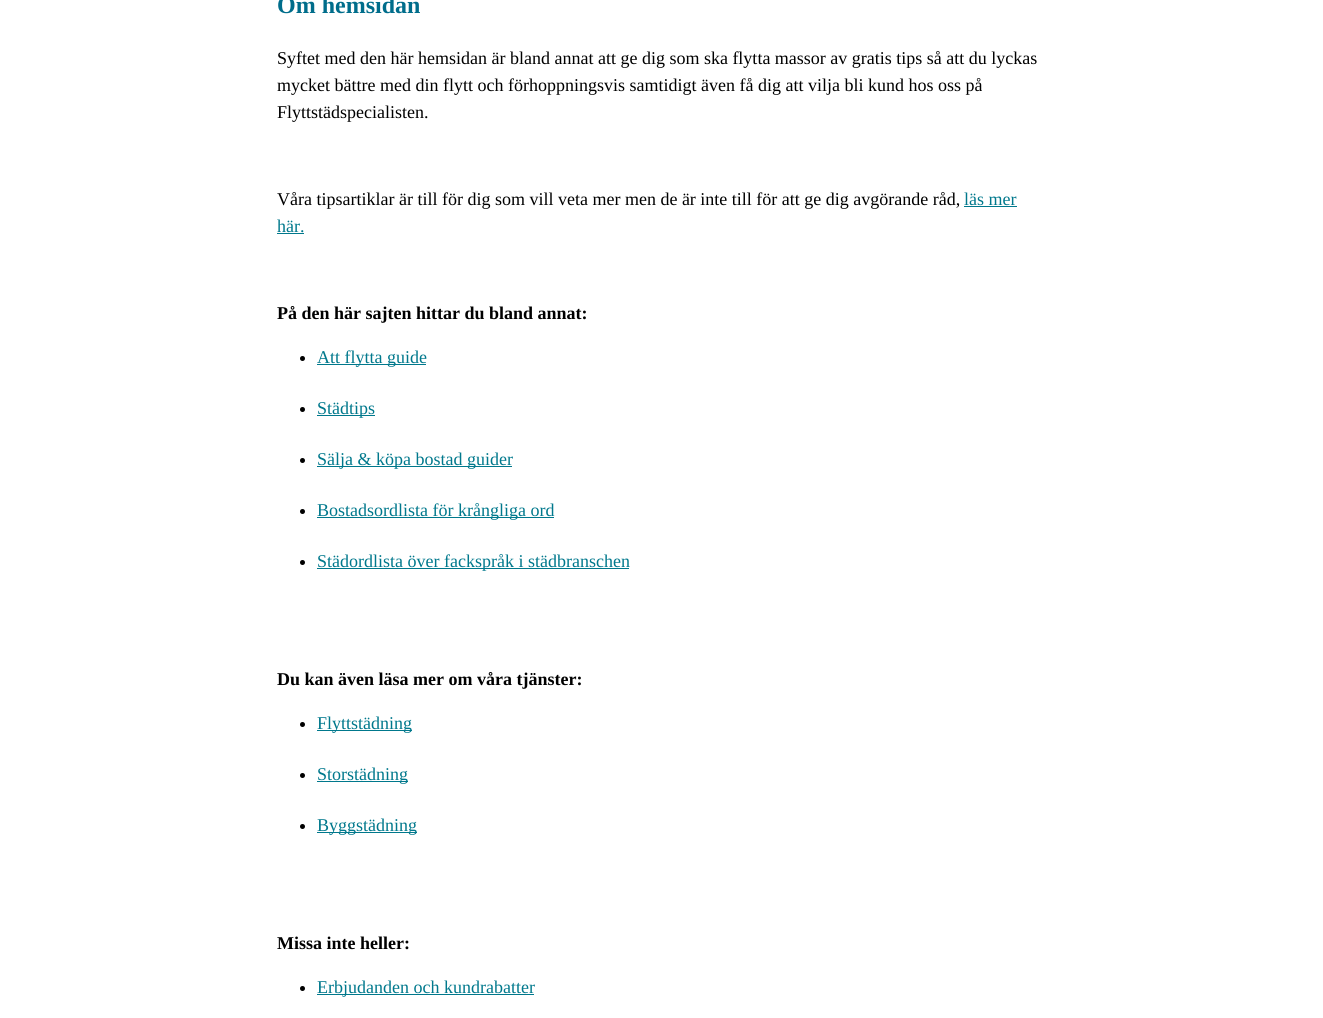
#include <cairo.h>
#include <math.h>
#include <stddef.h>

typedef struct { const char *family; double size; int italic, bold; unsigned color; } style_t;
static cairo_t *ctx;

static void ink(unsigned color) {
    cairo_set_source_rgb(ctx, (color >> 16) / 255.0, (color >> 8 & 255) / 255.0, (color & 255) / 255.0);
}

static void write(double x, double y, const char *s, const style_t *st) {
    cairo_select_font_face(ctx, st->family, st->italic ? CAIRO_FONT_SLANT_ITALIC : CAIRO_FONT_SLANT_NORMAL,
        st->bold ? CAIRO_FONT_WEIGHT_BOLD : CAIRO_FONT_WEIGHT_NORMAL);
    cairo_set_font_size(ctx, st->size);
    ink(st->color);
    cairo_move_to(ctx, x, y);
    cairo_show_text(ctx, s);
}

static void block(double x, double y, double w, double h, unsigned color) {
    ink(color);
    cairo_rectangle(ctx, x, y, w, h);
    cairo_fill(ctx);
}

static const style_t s1 = {"Liberation Serif", 24, 0, 1, 0x006d8b};
static const style_t s2 = {"Liberation Serif", 18, 0, 0, 0x000000};
static const style_t s3 = {"Liberation Serif", 18, 0, 0, 0x00788c};
static const style_t s4 = {"Liberation Serif", 18, 0, 1, 0x000000};

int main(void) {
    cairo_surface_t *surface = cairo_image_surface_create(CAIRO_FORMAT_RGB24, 1323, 1018);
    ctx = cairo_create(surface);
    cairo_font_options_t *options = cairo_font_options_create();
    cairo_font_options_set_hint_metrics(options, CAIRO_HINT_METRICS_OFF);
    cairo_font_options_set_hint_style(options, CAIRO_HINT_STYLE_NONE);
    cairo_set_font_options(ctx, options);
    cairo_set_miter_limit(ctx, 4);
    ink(0xffffff);
    cairo_paint(ctx);
    write(277, 13, "Om hemsidan", &s1);
    write(277, 64, "Syftet med den här hemsidan är bland annat att ge dig som ska flytta massor av gratis tips så att du lyckas", &s2);
    write(277, 91, "mycket bättre med din flytt och förhoppningsvis samtidigt även få dig att vilja bli kund hos oss på", &s2);
    write(277, 118, "Flyttstädspecialisten.", &s2);
    write(277, 205, "Våra tipsartiklar är till för dig som vill veta mer men de är inte till för att ge dig avgörande råd,", &s2);
    write(964, 205, "läs mer", &s3);
    block(964, 206, 53, 1, 0x00788c);
    write(277, 232, "här.", &s3);
    block(277, 233, 27, 1, 0x00788c);
    write(277, 319, "På den här sajten hittar du bland annat:", &s4);
    cairo_new_path(ctx);
    cairo_arc(ctx, 302.5, 358.5, 2.5, 0, 2 * M_PI);
    cairo_fill(ctx);
    block(317, 364, 109, 1, 0x00788c);
    write(317, 363, "Att flytta guide", &s3);
    ink(0x000000);
    cairo_new_path(ctx);
    cairo_arc(ctx, 302.5, 409.5, 2.5, 0, 2 * M_PI);
    cairo_fill(ctx);
    block(317, 415, 58, 1, 0x00788c);
    write(317, 414, "Städtips", &s3);
    ink(0x000000);
    cairo_new_path(ctx);
    cairo_arc(ctx, 302.5, 460.5, 2.5, 0, 2 * M_PI);
    cairo_fill(ctx);
    block(317, 466, 195, 1, 0x00788c);
    write(317, 465, "Sälja & köpa bostad guider", &s3);
    ink(0x000000);
    cairo_new_path(ctx);
    cairo_arc(ctx, 302.5, 511.5, 2.5, 0, 2 * M_PI);
    cairo_fill(ctx);
    block(317, 517, 237, 1, 0x00788c);
    write(317, 516, "Bostadsordlista för krångliga ord", &s3);
    ink(0x000000);
    cairo_new_path(ctx);
    cairo_arc(ctx, 302.5, 562.5, 2.5, 0, 2 * M_PI);
    cairo_fill(ctx);
    block(317, 568, 312, 1, 0x00788c);
    write(317, 567, "Städordlista över fackspråk i städbranschen", &s3);
    write(277, 685, "Du kan även läsa mer om våra tjänster:", &s4);
    cairo_new_path(ctx);
    cairo_arc(ctx, 302.5, 724.5, 2.5, 0, 2 * M_PI);
    cairo_fill(ctx);
    block(317, 730, 95, 1, 0x00788c);
    write(317, 729, "Flyttstädning", &s3);
    ink(0x000000);
    cairo_new_path(ctx);
    cairo_arc(ctx, 302.5, 775.5, 2.5, 0, 2 * M_PI);
    cairo_fill(ctx);
    block(317, 781, 91, 1, 0x00788c);
    write(317, 780, "Storstädning", &s3);
    ink(0x000000);
    cairo_new_path(ctx);
    cairo_arc(ctx, 302.5, 826.5, 2.5, 0, 2 * M_PI);
    cairo_fill(ctx);
    block(317, 832, 100, 1, 0x00788c);
    write(317, 831, "Byggstädning", &s3);
    write(277, 949, "Missa inte heller:", &s4);
    cairo_new_path(ctx);
    cairo_arc(ctx, 302.5, 988.5, 2.5, 0, 2 * M_PI);
    cairo_fill(ctx);
    block(317, 994, 217, 1, 0x00788c);
    write(317, 993, "Erbjudanden och kundrabatter", &s3);
    cairo_surface_write_to_png(surface, "screenshot.png");
    cairo_font_options_destroy(options);
    cairo_destroy(ctx);
    cairo_surface_destroy(surface);
    return 0;
}
